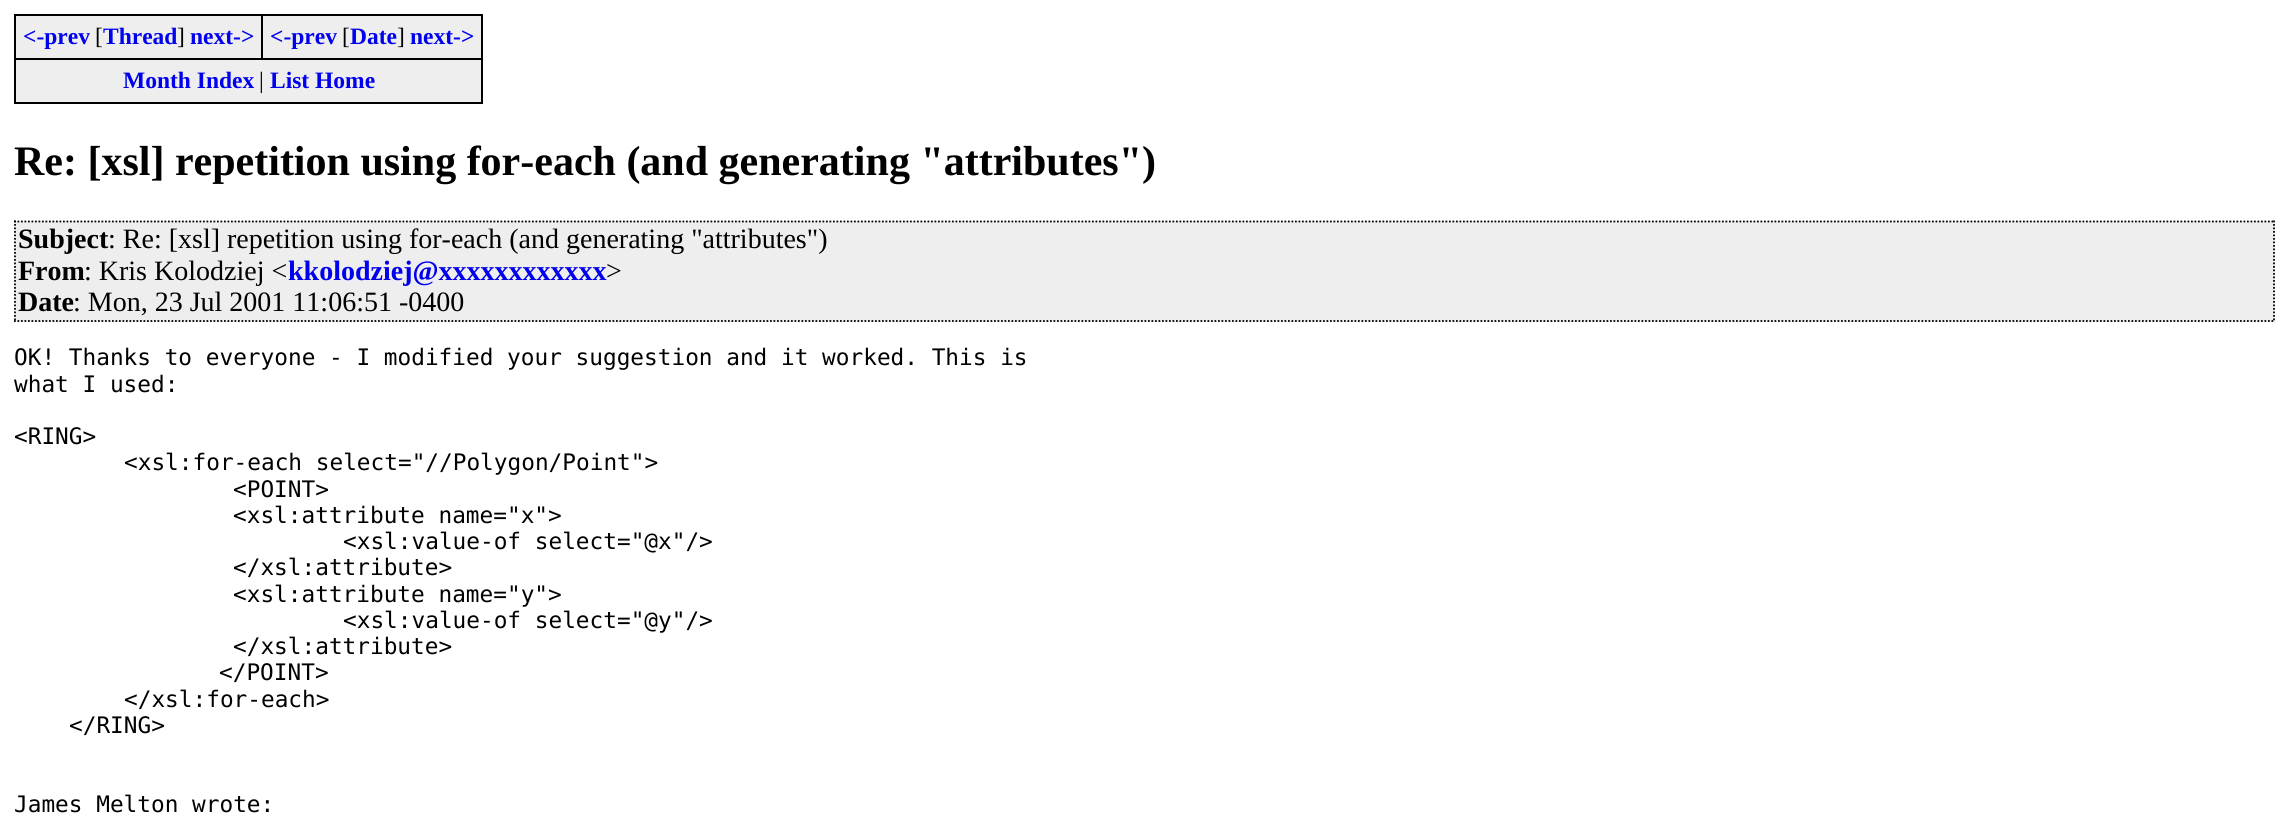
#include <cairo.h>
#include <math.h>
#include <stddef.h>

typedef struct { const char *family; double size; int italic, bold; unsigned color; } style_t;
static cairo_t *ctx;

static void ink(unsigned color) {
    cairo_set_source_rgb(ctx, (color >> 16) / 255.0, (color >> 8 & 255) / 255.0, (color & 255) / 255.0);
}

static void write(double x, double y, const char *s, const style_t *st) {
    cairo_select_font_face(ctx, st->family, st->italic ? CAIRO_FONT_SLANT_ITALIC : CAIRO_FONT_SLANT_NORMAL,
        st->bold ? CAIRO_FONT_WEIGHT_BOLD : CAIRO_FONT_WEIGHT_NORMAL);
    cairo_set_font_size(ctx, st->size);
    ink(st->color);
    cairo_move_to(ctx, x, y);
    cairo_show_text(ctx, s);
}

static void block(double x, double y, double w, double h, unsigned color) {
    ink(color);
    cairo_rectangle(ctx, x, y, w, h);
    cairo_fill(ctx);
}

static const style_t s1 = {"Liberation Serif", 23.5, 0, 1, 0x0000ee};
static const style_t s2 = {"Liberation Serif", 23.5, 0, 0, 0x000000};
static const style_t s3 = {"Liberation Serif", 42, 0, 1, 0x000000};
static const style_t s4 = {"Liberation Serif", 28, 0, 1, 0x000000};
static const style_t s5 = {"Liberation Serif", 28, 0, 0, 0x000000};
static const style_t s6 = {"Liberation Serif", 28, 0, 1, 0x0000ee};
static const style_t s7 = {"DejaVu Sans Mono", 22.75, 0, 0, 0x000000};

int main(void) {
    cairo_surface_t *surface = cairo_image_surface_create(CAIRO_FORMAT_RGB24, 2288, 839);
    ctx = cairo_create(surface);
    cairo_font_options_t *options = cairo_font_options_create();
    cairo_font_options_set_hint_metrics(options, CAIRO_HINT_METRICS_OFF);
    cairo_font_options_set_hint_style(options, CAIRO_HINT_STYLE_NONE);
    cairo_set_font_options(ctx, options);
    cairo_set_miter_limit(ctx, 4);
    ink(0xffffff);
    cairo_paint(ctx);
    block(16, 16, 465, 86, 0xeeeeee);
    block(14, 14, 469, 2, 0x000000);
    block(481, 14, 2, 89, 0x000000);
    block(14, 102, 469, 2, 0x000000);
    block(14, 14, 2, 89, 0x000000);
    write(23, 44, "<-prev", &s1);
    write(95, 44, "[", &s2);
    write(103, 44, "Thread", &s1);
    write(177, 44, "]", &s2);
    write(190, 44, "next->", &s1);
    block(14, 58, 469, 2, 0x000000);
    block(261, 14, 2, 46, 0x000000);
    write(270, 44, "<-prev", &s1);
    write(342, 44, "[", &s2);
    write(350, 44, "Date", &s1);
    write(397, 44, "]", &s2);
    write(410, 44, "next->", &s1);
    write(123, 88, "Month Index", &s1);
    write(259, 88, "|", &s2);
    write(270, 88, "List Home", &s1);
    write(14, 175, "Re: [xsl] repetition using for-each (and generating \"attributes\")", &s3);
    block(14, 221, 2261, 101, 0xeeeeee);
    cairo_new_path(ctx);
    cairo_move_to(ctx, 14, 221.5);
    cairo_line_to(ctx, 2275, 221.5);
    ink(0x000000);
    cairo_set_line_width(ctx, 1.8);
    cairo_set_dash(ctx, (double[]){1.75, 1.75}, 2, 0);
    cairo_stroke(ctx);
    cairo_new_path(ctx);
    cairo_move_to(ctx, 2274, 220.5);
    cairo_line_to(ctx, 2274, 322);
    cairo_stroke(ctx);
    cairo_new_path(ctx);
    cairo_move_to(ctx, 14, 321);
    cairo_line_to(ctx, 2275, 321);
    cairo_stroke(ctx);
    cairo_new_path(ctx);
    cairo_move_to(ctx, 15, 220.5);
    cairo_line_to(ctx, 15, 322);
    cairo_stroke(ctx);
    write(18, 248, "Subject", &s4);
    write(108, 248, ": Re: [xsl] repetition using for-each (and generating \"attributes\")", &s5);
    write(18, 280, "From", &s4);
    write(84, 280, ": Kris Kolodziej <", &s5);
    write(288, 280, "kkolodziej@xxxxxxxxxxxx", &s6);
    write(606, 280, ">", &s5);
    write(18, 311, "Date", &s4);
    write(73, 311, ": Mon, 23 Jul 2001 11:06:51 -0400", &s5);
    write(14, 365, "OK! Thanks to everyone - I modified your suggestion and it worked. This is", &s7);
    write(14, 392, "what I used:", &s7);
    write(14, 444, "<RING>", &s7);
    write(124, 470, "<xsl:for-each select=\"//Polygon/Point\">", &s7);
    write(233, 497, "<POINT>", &s7);
    write(233, 523, "<xsl:attribute name=\"x\">", &s7);
    write(343, 549, "<xsl:value-of select=\"@x\"/>", &s7);
    write(233, 575, "</xsl:attribute>", &s7);
    write(233, 602, "<xsl:attribute name=\"y\">", &s7);
    write(343, 628, "<xsl:value-of select=\"@y\"/>", &s7);
    write(233, 654, "</xsl:attribute>", &s7);
    write(219, 680, "</POINT>", &s7);
    write(124, 707, "</xsl:for-each>", &s7);
    write(69, 733, "</RING>", &s7);
    write(14, 812, "James Melton wrote:", &s7);
    cairo_surface_write_to_png(surface, "screenshot.png");
    cairo_font_options_destroy(options);
    cairo_destroy(ctx);
    cairo_surface_destroy(surface);
    return 0;
}
